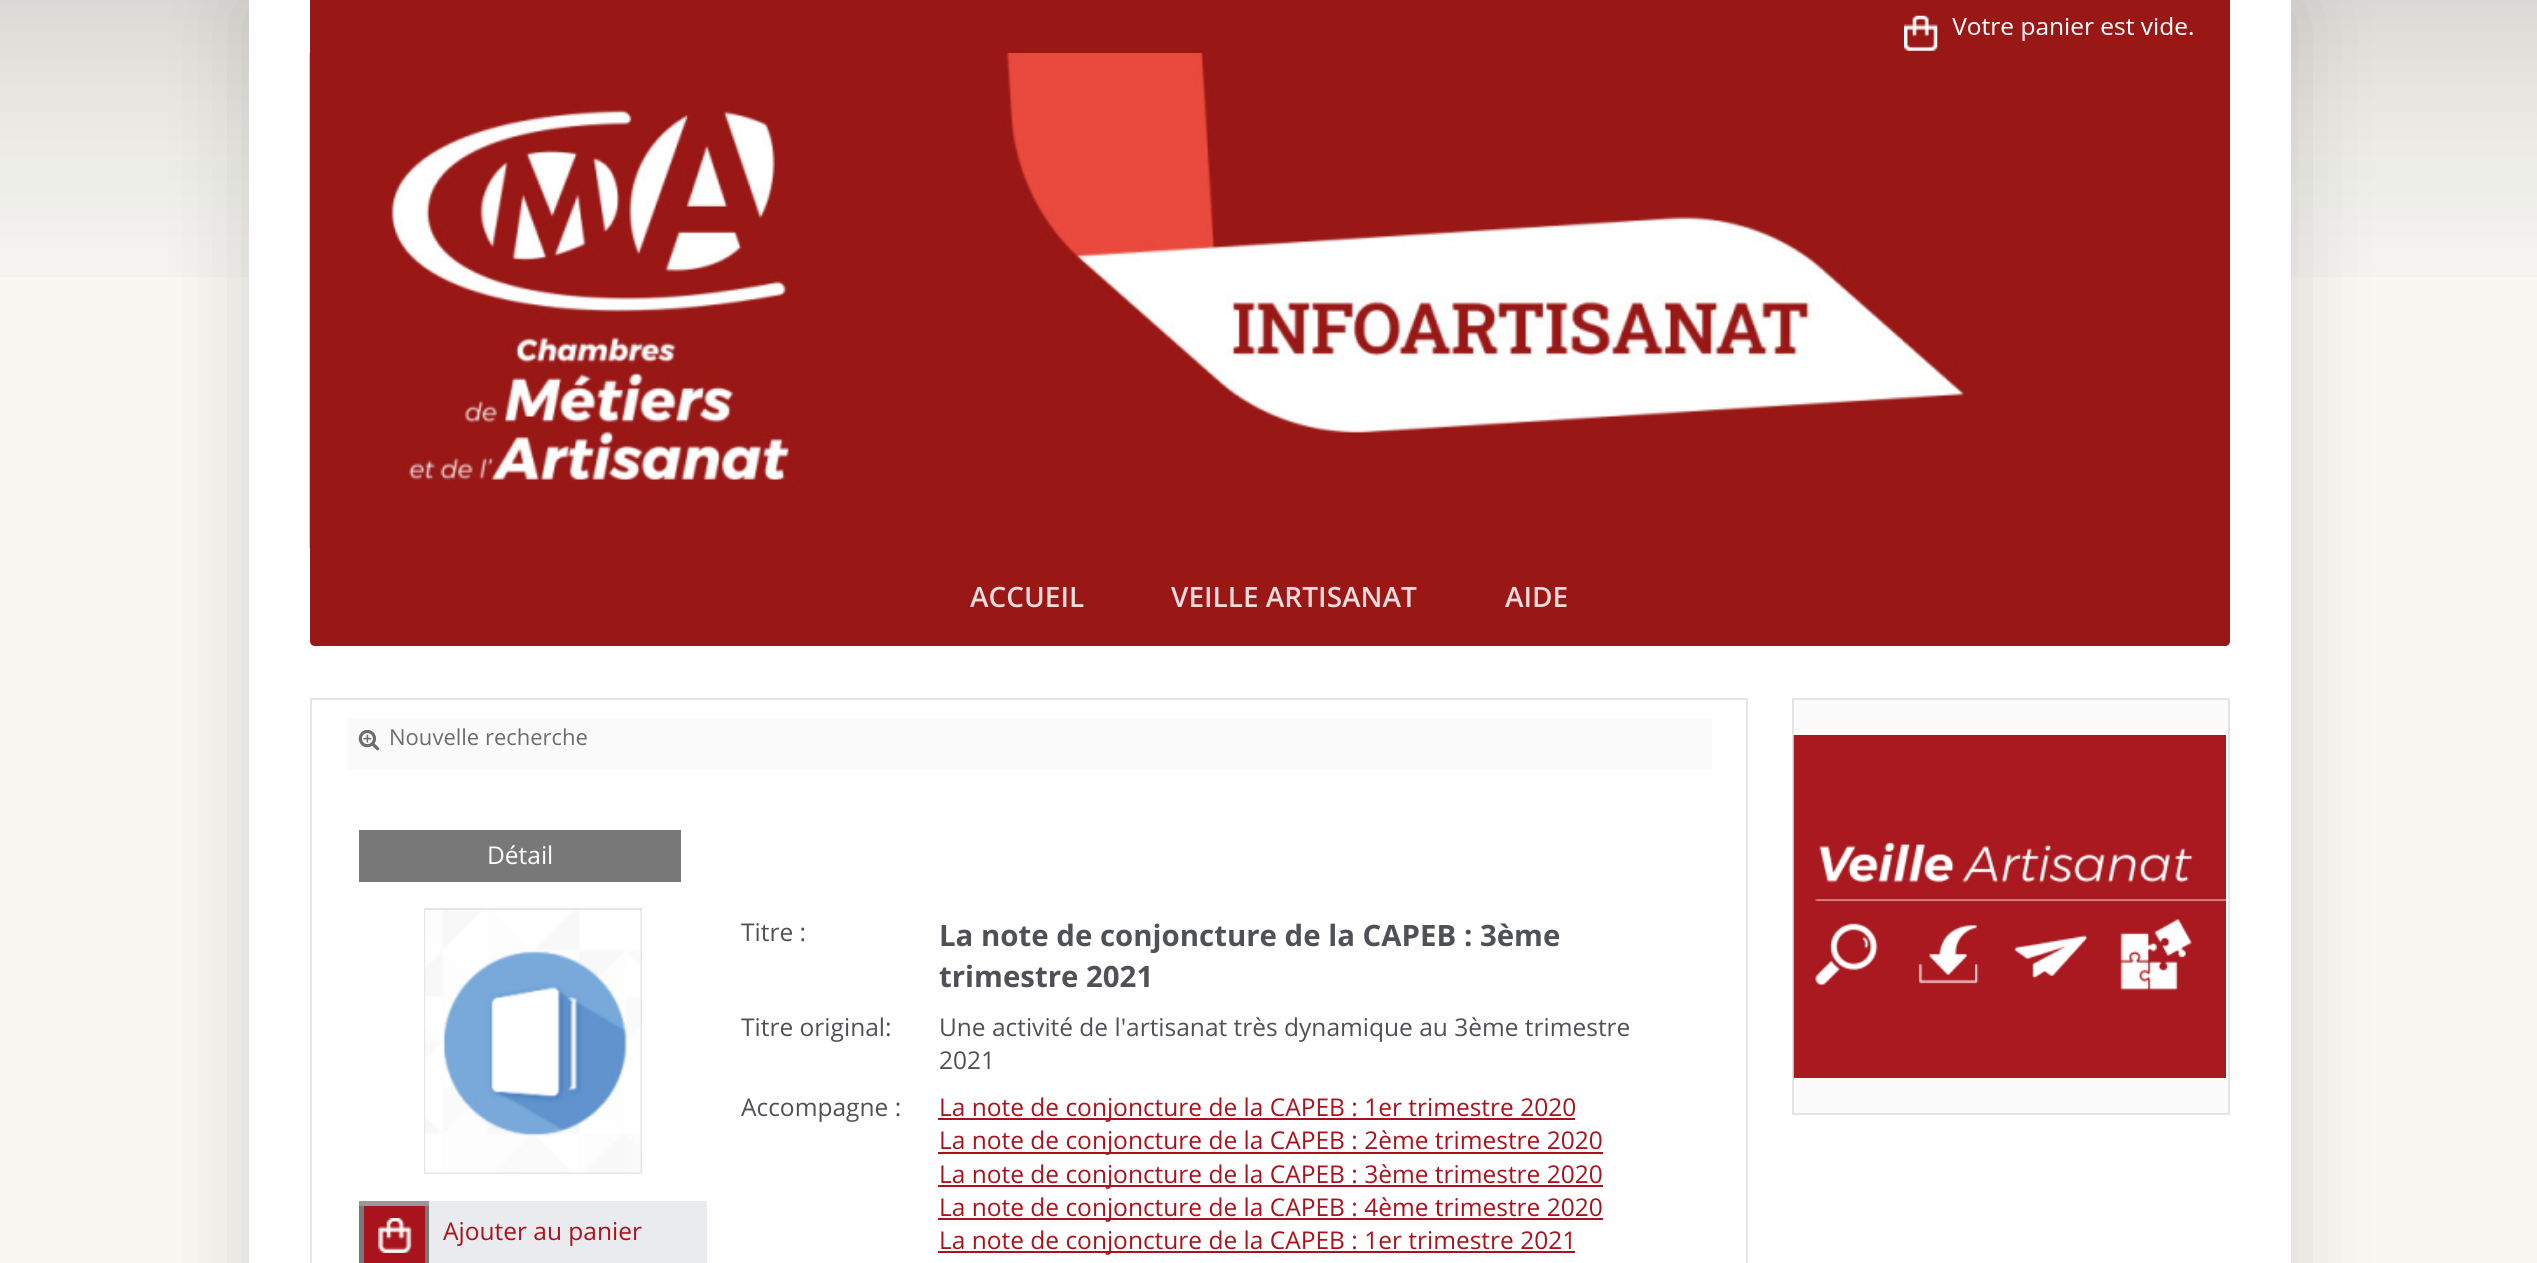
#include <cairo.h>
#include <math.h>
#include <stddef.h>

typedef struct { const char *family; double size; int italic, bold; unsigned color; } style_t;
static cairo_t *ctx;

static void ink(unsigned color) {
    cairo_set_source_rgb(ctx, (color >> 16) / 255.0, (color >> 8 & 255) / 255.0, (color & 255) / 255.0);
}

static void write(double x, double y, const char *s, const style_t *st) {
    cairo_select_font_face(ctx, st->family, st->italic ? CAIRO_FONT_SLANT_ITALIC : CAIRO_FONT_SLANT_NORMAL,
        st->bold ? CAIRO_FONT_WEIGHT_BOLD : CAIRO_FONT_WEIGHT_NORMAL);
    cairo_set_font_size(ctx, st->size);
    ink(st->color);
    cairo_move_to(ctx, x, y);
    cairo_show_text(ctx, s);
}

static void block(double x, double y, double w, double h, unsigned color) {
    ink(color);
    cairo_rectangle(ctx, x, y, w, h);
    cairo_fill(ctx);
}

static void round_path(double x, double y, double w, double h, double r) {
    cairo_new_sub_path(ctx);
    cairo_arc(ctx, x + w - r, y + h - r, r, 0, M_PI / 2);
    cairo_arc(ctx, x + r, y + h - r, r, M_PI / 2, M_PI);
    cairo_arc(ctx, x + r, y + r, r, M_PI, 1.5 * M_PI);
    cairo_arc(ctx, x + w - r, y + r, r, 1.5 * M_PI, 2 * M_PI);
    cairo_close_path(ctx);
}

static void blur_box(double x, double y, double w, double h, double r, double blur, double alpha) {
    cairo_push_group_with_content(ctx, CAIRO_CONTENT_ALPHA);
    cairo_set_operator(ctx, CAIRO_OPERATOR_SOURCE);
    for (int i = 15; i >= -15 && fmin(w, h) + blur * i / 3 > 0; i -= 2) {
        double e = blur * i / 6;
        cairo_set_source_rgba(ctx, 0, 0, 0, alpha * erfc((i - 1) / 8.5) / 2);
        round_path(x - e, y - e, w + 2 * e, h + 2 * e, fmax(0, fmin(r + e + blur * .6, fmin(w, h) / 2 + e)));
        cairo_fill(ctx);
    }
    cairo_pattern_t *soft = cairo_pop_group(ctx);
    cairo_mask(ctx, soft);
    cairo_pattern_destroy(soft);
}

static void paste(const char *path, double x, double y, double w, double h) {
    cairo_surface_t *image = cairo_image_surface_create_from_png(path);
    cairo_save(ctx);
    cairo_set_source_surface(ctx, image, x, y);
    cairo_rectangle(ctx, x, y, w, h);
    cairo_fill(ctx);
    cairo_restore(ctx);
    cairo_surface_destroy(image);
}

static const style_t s1 = {"Open Sans SemiBold", 28, 0, 0, 0xf0dcdc};
static const style_t s2 = {"Open Sans", 22, 0, 0, 0x6c6c6c};
static const style_t s3 = {"Open Sans", 24.5, 0, 0, 0xffffff};
static const style_t s4 = {"Open Sans", 24.5, 0, 0, 0xa8131d};
static const style_t s5 = {"Open Sans", 24.5, 0, 0, 0x4f5157};
static const style_t s6 = {"Open Sans", 29.4, 0, 1, 0x4f5157};

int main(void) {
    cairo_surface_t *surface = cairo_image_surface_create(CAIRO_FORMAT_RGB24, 2537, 1263);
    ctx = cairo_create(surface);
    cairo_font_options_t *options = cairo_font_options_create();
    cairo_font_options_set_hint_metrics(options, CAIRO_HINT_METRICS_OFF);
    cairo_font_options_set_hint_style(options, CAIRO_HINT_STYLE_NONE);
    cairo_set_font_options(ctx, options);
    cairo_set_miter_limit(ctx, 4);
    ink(0xf8f7f2);
    cairo_paint(ctx);
    paste("pic1.png", 0, 0, 2537, 277);
    ink(0x000000);
    blur_box(249, 0, 2042, 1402, 7, 44, 0.15);
    block(249, 0, 2042, 1263, 0xffffff);
    ink(0x991715);
    cairo_new_path(ctx);
    cairo_move_to(ctx, 310, 0);
    cairo_line_to(ctx, 2230, 0);
    cairo_line_to(ctx, 2230, 641);
    cairo_curve_to(ctx, 2230, 644, 2228, 646, 2225, 646);
    cairo_line_to(ctx, 315, 646);
    cairo_curve_to(ctx, 312, 646, 310, 644, 310, 641);
    cairo_close_path(ctx);
    cairo_fill(ctx);
    paste("pic3.png", 309, 52, 1660, 496);
    block(1006, 52, 197, 1, 0x991715);
    paste("pic2.png", 1904, 15, 289, 36);
    write(970, 607, "ACCUEIL", &s1);
    write(1171, 607, "VEILLE ARTISANAT", &s1);
    write(1505, 607, "AIDE", &s1);
    cairo_rectangle(ctx, 311, 699, 1436, 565);
    ink(0xe5e5e5);
    cairo_stroke(ctx);
    block(347, 718, 1365, 52, 0xfbfbfb);
    paste("pic4.png", 358, 729, 22, 22);
    write(389, 745, "Nouvelle recherche", &s2);
    block(359, 830, 322, 52, 0x787878);
    write(487, 864, "Détail", &s3);
    cairo_rectangle(ctx, 425, 909, 216, 264);
    ink(0xe6e6e6);
    cairo_stroke(ctx);
    paste("pic5.png", 425, 910, 216, 263);
    block(359, 1201, 70, 5, 0x999999);
    block(359, 1206, 70, 57, 0x787878);
    block(364, 1206, 61, 57, 0xa8131d);
    paste("pic6.png", 378, 1218, 34, 35);
    block(429, 1201, 278, 62, 0xe9ebee);
    write(443, 1240, "Ajouter au panier", &s4);
    write(741, 941, "Titre :", &s5);
    write(939, 946, "La note de conjoncture de la CAPEB : 3ème", &s6);
    write(939, 987, "trimestre 2021", &s6);
    write(741, 1036, "Titre original:", &s5);
    write(939, 1036, "Une activité de l'artisanat très dynamique au 3ème trimestre", &s5);
    write(939, 1069, "2021", &s5);
    write(741, 1116, "Accompagne :", &s5);
    block(938, 1118, 637, 2, 0xa8131d);
    write(939, 1116, "La note de conjoncture de la CAPEB : 1er trimestre 2020", &s4);
    block(938, 1152, 665, 2, 0xa8131d);
    write(939, 1149, "La note de conjoncture de la CAPEB : 2ème trimestre 2020", &s4);
    block(938, 1185, 665, 2, 0xa8131d);
    write(939, 1183, "La note de conjoncture de la CAPEB : 3ème trimestre 2020", &s4);
    block(938, 1218, 665, 2, 0xa8131d);
    write(939, 1216, "La note de conjoncture de la CAPEB : 4ème trimestre 2020", &s4);
    block(938, 1251, 637, 2, 0xa8131d);
    write(939, 1249, "La note de conjoncture de la CAPEB : 1er trimestre 2021", &s4);
    ink(0xfbfbfb);
    cairo_rectangle(ctx, 1793, 699, 436, 415);
    cairo_fill_preserve(ctx);
    ink(0xe5e5e5);
    cairo_stroke(ctx);
    paste("pic7.png", 1793, 735, 433, 343);
    cairo_surface_write_to_png(surface, "screenshot.png");
    cairo_font_options_destroy(options);
    cairo_destroy(ctx);
    cairo_surface_destroy(surface);
    return 0;
}
